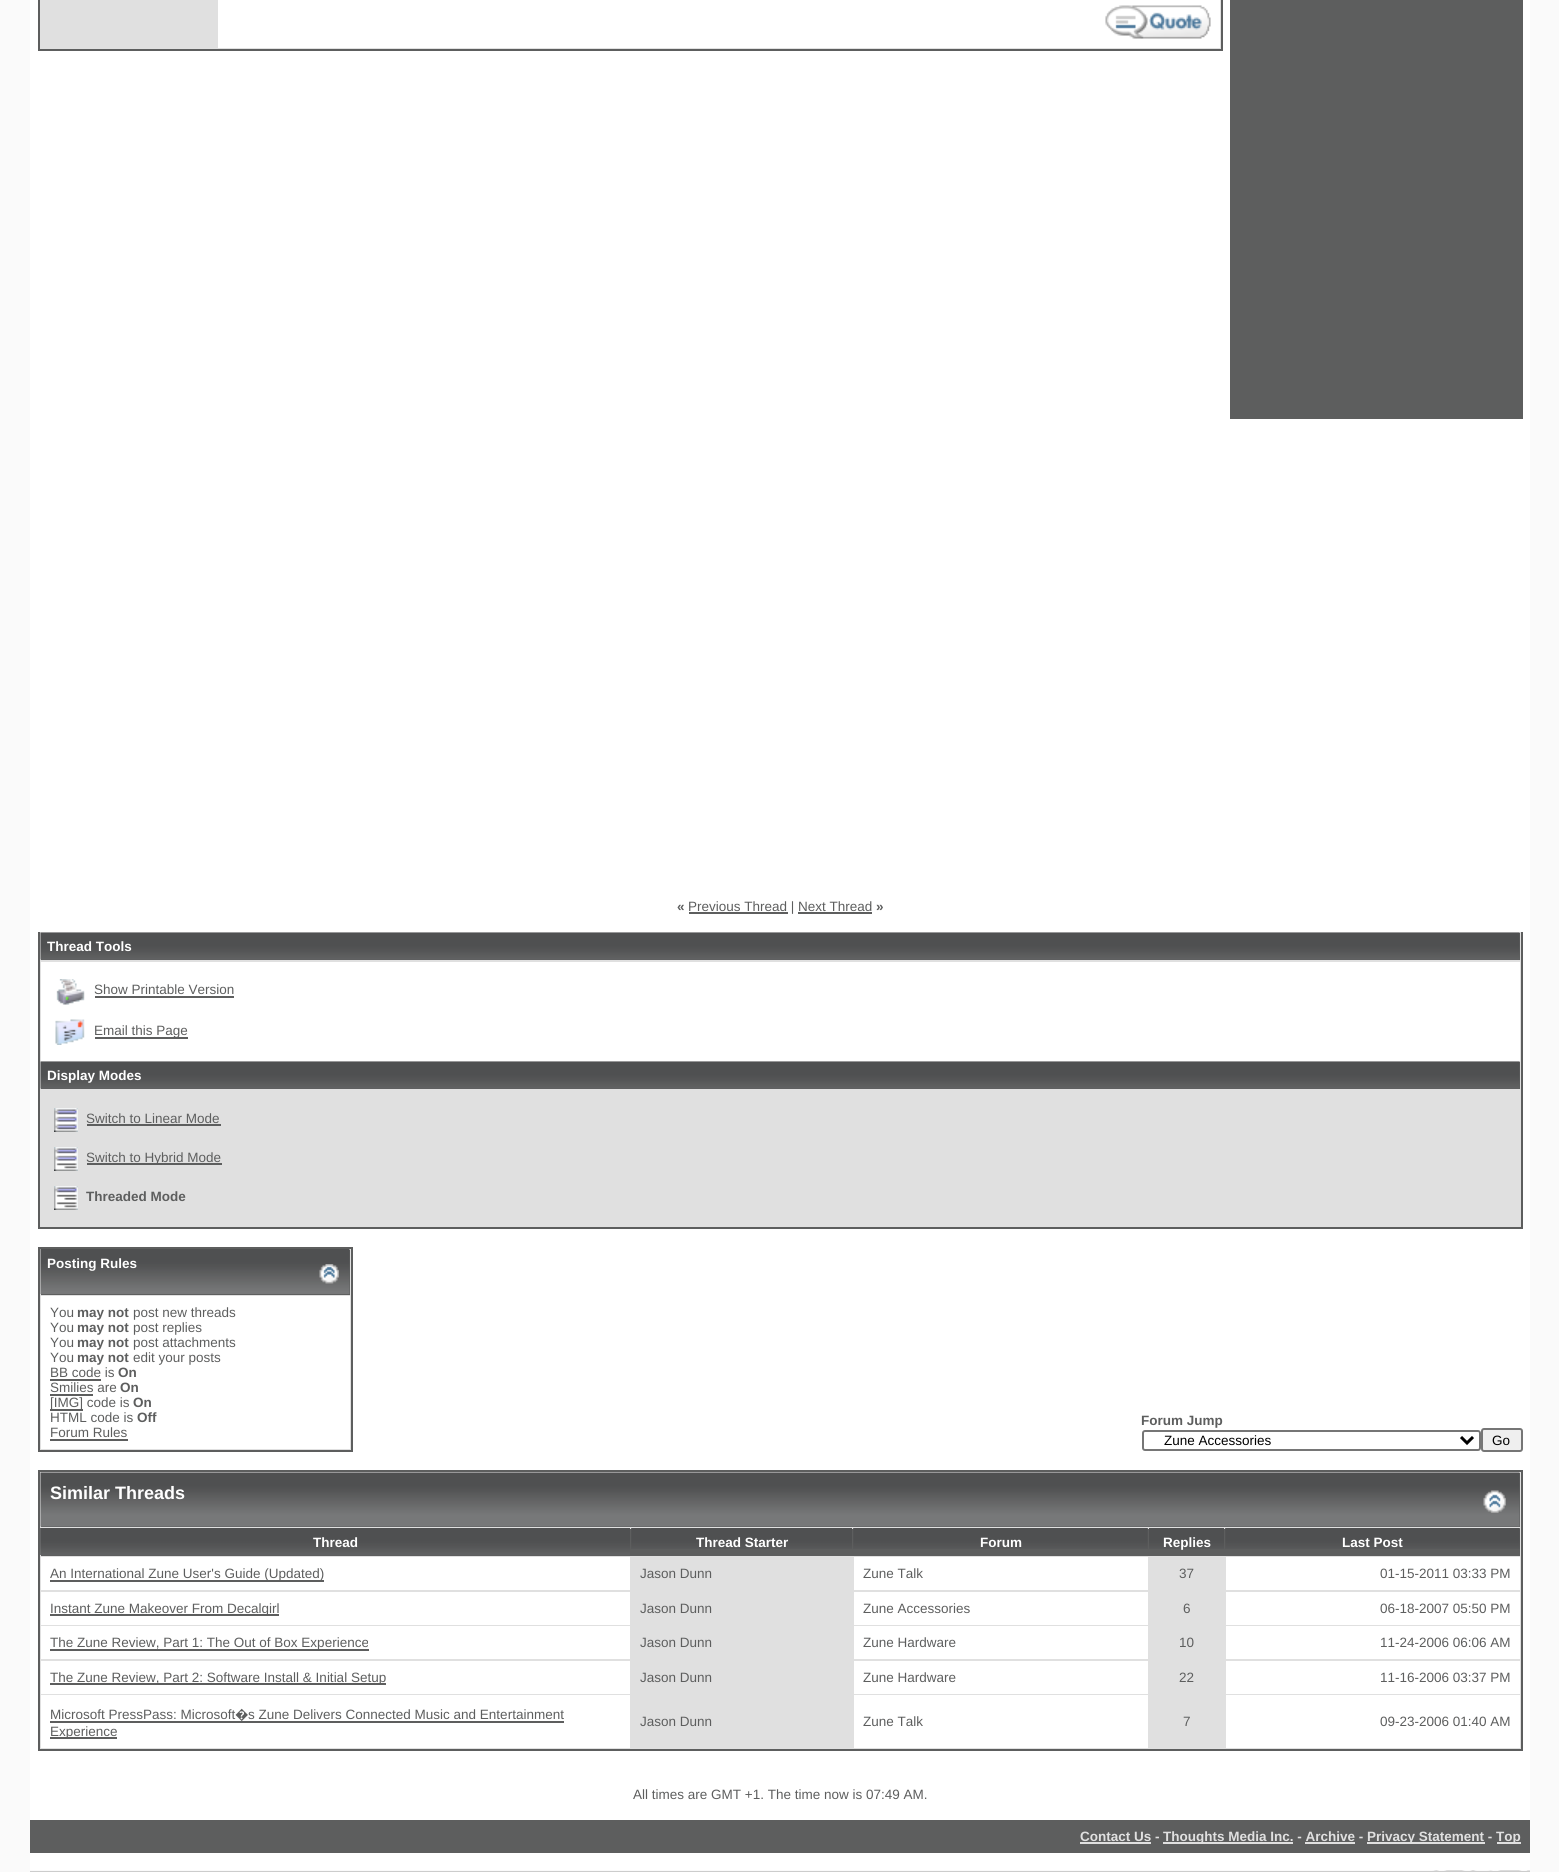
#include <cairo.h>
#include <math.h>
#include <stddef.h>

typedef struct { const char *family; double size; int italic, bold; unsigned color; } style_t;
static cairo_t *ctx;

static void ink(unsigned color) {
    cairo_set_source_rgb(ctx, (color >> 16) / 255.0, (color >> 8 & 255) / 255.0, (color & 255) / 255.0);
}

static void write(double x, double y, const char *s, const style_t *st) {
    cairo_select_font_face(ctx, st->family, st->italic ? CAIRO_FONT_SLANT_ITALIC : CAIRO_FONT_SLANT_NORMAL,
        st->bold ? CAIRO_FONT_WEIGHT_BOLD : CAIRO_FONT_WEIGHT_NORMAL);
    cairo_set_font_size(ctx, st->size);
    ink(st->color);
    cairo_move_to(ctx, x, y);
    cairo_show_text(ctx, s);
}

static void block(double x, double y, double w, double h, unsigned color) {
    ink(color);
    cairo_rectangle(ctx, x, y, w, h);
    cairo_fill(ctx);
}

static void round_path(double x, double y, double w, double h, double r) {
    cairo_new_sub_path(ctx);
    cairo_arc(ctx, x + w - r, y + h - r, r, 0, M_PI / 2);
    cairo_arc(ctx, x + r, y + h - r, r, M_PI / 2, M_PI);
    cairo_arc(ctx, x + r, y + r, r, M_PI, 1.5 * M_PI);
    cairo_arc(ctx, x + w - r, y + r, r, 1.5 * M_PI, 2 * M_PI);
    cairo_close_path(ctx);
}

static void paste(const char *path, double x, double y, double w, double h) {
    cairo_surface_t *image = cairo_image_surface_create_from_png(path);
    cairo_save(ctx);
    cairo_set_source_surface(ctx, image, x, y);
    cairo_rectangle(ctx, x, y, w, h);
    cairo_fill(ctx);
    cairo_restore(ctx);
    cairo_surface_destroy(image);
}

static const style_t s1 = {"Liberation Sans", 13.5, 0, 1, 0x5d5e5e};
static const style_t s2 = {"Liberation Sans", 13.5, 0, 0, 0x5d5e5e};
static const style_t s3 = {"Liberation Sans", 13.5, 0, 1, 0xffffff};
static const style_t s4 = {"Liberation Sans", 13.5, 0, 0, 0x000000};
static const style_t s5 = {"Liberation Sans", 18, 0, 1, 0xffffff};
static const style_t s6 = {"Noto Sans", 13.5, 0, 0, 0x5d5e5e};
static const style_t s7 = {"Liberation Sans", 13.5, 0, 1, 0xe0e0e0};

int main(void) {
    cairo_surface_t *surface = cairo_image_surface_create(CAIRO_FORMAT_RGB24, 1559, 1872);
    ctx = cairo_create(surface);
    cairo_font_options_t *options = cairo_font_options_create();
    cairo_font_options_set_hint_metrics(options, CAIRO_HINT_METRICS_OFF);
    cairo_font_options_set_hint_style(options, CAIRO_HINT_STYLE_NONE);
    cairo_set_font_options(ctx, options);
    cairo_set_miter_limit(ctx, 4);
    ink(0xfafafa);
    cairo_paint(ctx);
    block(30, 0, 1500, 1870, 0xffffff);
    ink(0xe0e0e0);
    cairo_rectangle(ctx, 39, -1, 1183, 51);
    cairo_fill_preserve(ctx);
    ink(0x5d5e5e);
    cairo_stroke(ctx);
    block(218, 0, 1002, 48, 0xffffff);
    paste("pic1.png", 1105, 5, 106, 34);
    block(1230, 0, 293, 419, 0x5d5e5e);
    write(677, 911, "«", &s1);
    block(689, 912, 99, 2, 0x5d5e5e);
    write(688, 911, "Previous Thread | Next Thread", &s2);
    write(876, 911, "»", &s1);
    block(798, 912, 74, 2, 0x5d5e5e);
    block(40, 932, 1481, 295, 0xe0e0e0);
    block(1521, 932, 2, 297, 0x5d5e5e);
    block(38, 1227, 1485, 2, 0x5d5e5e);
    block(38, 932, 2, 297, 0x5d5e5e);
    block(41, 933, 1479, 27, 0x5d5e5e);
    paste("pic2.png", 40, 932, 1480, 28);
    write(47, 951, "Thread Tools", &s3);
    block(41, 962, 1479, 99, 0xffffff);
    paste("pic3.png", 56, 979, 29, 26);
    write(94, 994, "Show Printable Version", &s2);
    block(95, 996, 139, 2, 0x5d5e5e);
    paste("pic4.png", 55, 1019, 30, 26);
    block(95, 1037, 93, 2, 0x5d5e5e);
    write(94, 1035, "Email this Page", &s2);
    block(41, 1062, 1479, 27, 0x5d5e5e);
    paste("pic5.png", 40, 1061, 1480, 28);
    write(47, 1080, "Display Modes", &s3);
    paste("pic6.png", 54, 1108, 24, 24);
    write(86, 1123, "Switch to Linear Mode", &s2);
    block(87, 1124, 134, 2, 0x5d5e5e);
    paste("pic7.png", 54, 1147, 24, 24);
    block(87, 1163, 135, 2, 0x5d5e5e);
    write(86, 1162, "Switch to Hybrid Mode", &s2);
    paste("pic8.png", 54, 1186, 24, 24);
    write(86, 1201, "Threaded Mode", &s1);
    ink(0xe0e0e0);
    cairo_rectangle(ctx, 39, 1248, 313, 203);
    cairo_fill_preserve(ctx);
    ink(0x5d5e5e);
    cairo_stroke(ctx);
    block(41, 1250, 309, 45, 0x5d5e5e);
    paste("pic9.png", 40, 1249, 310, 45);
    write(47, 1268, "Posting Rules", &s3);
    paste("pic10.png", 319, 1264, 20, 20);
    block(41, 1296, 309, 153, 0xffffff);
    write(50, 1317, "You", &s2);
    write(77, 1317, "may not", &s1);
    write(133, 1317, "post new threads", &s2);
    write(50, 1332, "You", &s2);
    write(77, 1332, "may not", &s1);
    write(133, 1332, "post replies", &s2);
    write(50, 1347, "You", &s2);
    write(77, 1347, "may not", &s1);
    write(133, 1347, "post attachments", &s2);
    write(50, 1362, "You", &s2);
    write(77, 1362, "may not", &s1);
    write(133, 1362, "edit your posts", &s2);
    write(50, 1377, "BB code is", &s2);
    block(50, 1379, 51, 2, 0x5d5e5e);
    write(118, 1377, "On", &s1);
    write(50, 1392, "Smilies are", &s2);
    block(50, 1394, 43, 2, 0x5d5e5e);
    write(120, 1392, "On", &s1);
    block(50, 1409, 33, 2, 0x5d5e5e);
    write(50, 1407, "[IMG] code is", &s2);
    write(133, 1407, "On", &s1);
    write(50, 1422, "HTML code is", &s2);
    write(137, 1422, "Off", &s1);
    write(50, 1437, "Forum Rules", &s2);
    block(50, 1439, 78, 2, 0x5d5e5e);
    write(1141, 1425, "Forum Jump", &s1);
    round_path(1143, 1431, 337, 19, 2);
    ink(0x767676);
    cairo_stroke(ctx);
    cairo_new_path(ctx);
    cairo_move_to(ctx, 1461, 1437);
    cairo_line_to(ctx, 1467, 1443);
    cairo_line_to(ctx, 1473, 1437);
    ink(0x000000);
    cairo_set_line_width(ctx, 3);
    cairo_stroke(ctx);
    write(1164, 1445, "Zune Accessories", &s4);
    ink(0xefefef);
    round_path(1482, 1429, 40, 22, 2);
    cairo_fill_preserve(ctx);
    ink(0x767676);
    cairo_set_line_width(ctx, 2);
    cairo_stroke(ctx);
    write(1492, 1445, "Go", &s4);
    ink(0xe0e0e0);
    cairo_rectangle(ctx, 39, 1471, 1483, 279);
    cairo_fill_preserve(ctx);
    ink(0x5d5e5e);
    cairo_stroke(ctx);
    block(41, 1473, 1479, 54, 0x5d5e5e);
    paste("pic11.png", 40, 1472, 1480, 55);
    write(50, 1499, "Similar Threads", &s5);
    paste("pic12.png", 1483, 1490, 23, 23);
    block(41, 1529, 1479, 27, 0x5d5e5e);
    paste("pic13.png", 40, 1528, 590, 27);
    write(313, 1547, "Thread", &s3);
    paste("pic14.png", 631, 1528, 221, 21);
    write(696, 1547, "Thread Starter", &s3);
    paste("pic15.png", 853, 1528, 295, 21);
    write(980, 1547, "Forum", &s3);
    paste("pic16.png", 1149, 1528, 75, 21);
    write(1163, 1547, "Replies", &s3);
    paste("pic17.png", 1225, 1528, 295, 21);
    write(1342, 1547, "Last Post", &s3);
    block(41, 1557, 589, 33, 0xffffff);
    block(50, 1580, 274, 2, 0x5d5e5e);
    write(50, 1578, "An International Zune User's Guide (Updated)", &s2);
    write(640, 1578, "Jason Dunn", &s2);
    block(854, 1557, 294, 33, 0xffffff);
    write(863, 1578, "Zune Talk", &s2);
    write(1179, 1578, "37", &s2);
    block(1226, 1557, 294, 33, 0xffffff);
    write(1380, 1578, "01-15-2011 03:33 PM", &s2);
    block(41, 1592, 589, 33, 0xffffff);
    block(50, 1614, 229, 2, 0x5d5e5e);
    write(50, 1613, "Instant Zune Makeover From Decalgirl", &s2);
    write(640, 1613, "Jason Dunn", &s2);
    block(854, 1592, 294, 33, 0xffffff);
    write(863, 1613, "Zune Accessories", &s2);
    write(1183, 1613, "6", &s2);
    block(1226, 1592, 294, 33, 0xffffff);
    write(1380, 1613, "06-18-2007 05:50 PM", &s2);
    block(41, 1626, 589, 33, 0xffffff);
    block(50, 1649, 319, 2, 0x5d5e5e);
    write(50, 1647, "The Zune Review, Part 1: The Out of Box Experience", &s2);
    write(640, 1647, "Jason Dunn", &s2);
    block(854, 1626, 294, 33, 0xffffff);
    write(863, 1647, "Zune Hardware", &s2);
    write(1179, 1647, "10", &s2);
    block(1226, 1626, 294, 33, 0xffffff);
    write(1380, 1647, "11-24-2006 06:06 AM", &s2);
    block(41, 1661, 589, 33, 0xffffff);
    block(50, 1683, 336, 2, 0x5d5e5e);
    write(50, 1682, "The Zune Review, Part 2: Software Install & Initial Setup", &s2);
    write(640, 1682, "Jason Dunn", &s2);
    block(854, 1661, 294, 33, 0xffffff);
    write(863, 1682, "Zune Hardware", &s2);
    write(1179, 1682, "22", &s2);
    block(1226, 1661, 294, 33, 0xffffff);
    write(1380, 1682, "11-16-2006 03:37 PM", &s2);
    block(41, 1695, 589, 53, 0xffffff);
    write(50, 1719, "Microsoft PressPass: Microsoft", &s2);
    block(50, 1721, 514, 2, 0x5d5e5e);
    write(235, 1719, "�", &s6);
    write(248, 1719, "s Zune Delivers Connected Music and Entertainment", &s2);
    block(50, 1737, 67, 2, 0x5d5e5e);
    write(50, 1736, "Experience", &s2);
    write(640, 1726, "Jason Dunn", &s2);
    block(854, 1695, 294, 53, 0xffffff);
    write(863, 1726, "Zune Talk", &s2);
    write(1183, 1726, "7", &s2);
    block(1226, 1695, 294, 53, 0xffffff);
    write(1380, 1726, "09-23-2006 01:40 AM", &s2);
    write(633, 1799, "All times are GMT +1. The time now is 07:49 AM.", &s2);
    block(30, 1820, 1500, 33, 0x5d5e5e);
    write(1080, 1841, "Contact Us -", &s7);
    block(1080, 1842, 71, 2, 0xe0e0e0);
    block(1163, 1842, 130, 2, 0xe0e0e0);
    write(1163, 1841, "Thoughts Media Inc. - Archive -", &s7);
    block(1305, 1842, 50, 2, 0xe0e0e0);
    block(1367, 1842, 118, 2, 0xe0e0e0);
    write(1367, 1841, "Privacy Statement -", &s7);
    block(1497, 1842, 24, 2, 0xe0e0e0);
    write(1496, 1841, "Top", &s7);
    paste("pic18.png", 30, 1870, 1500, 1);
    block(30, 1871, 1500, 1, 0xcccccc);
    cairo_surface_write_to_png(surface, "screenshot.png");
    cairo_font_options_destroy(options);
    cairo_destroy(ctx);
    cairo_surface_destroy(surface);
    return 0;
}
